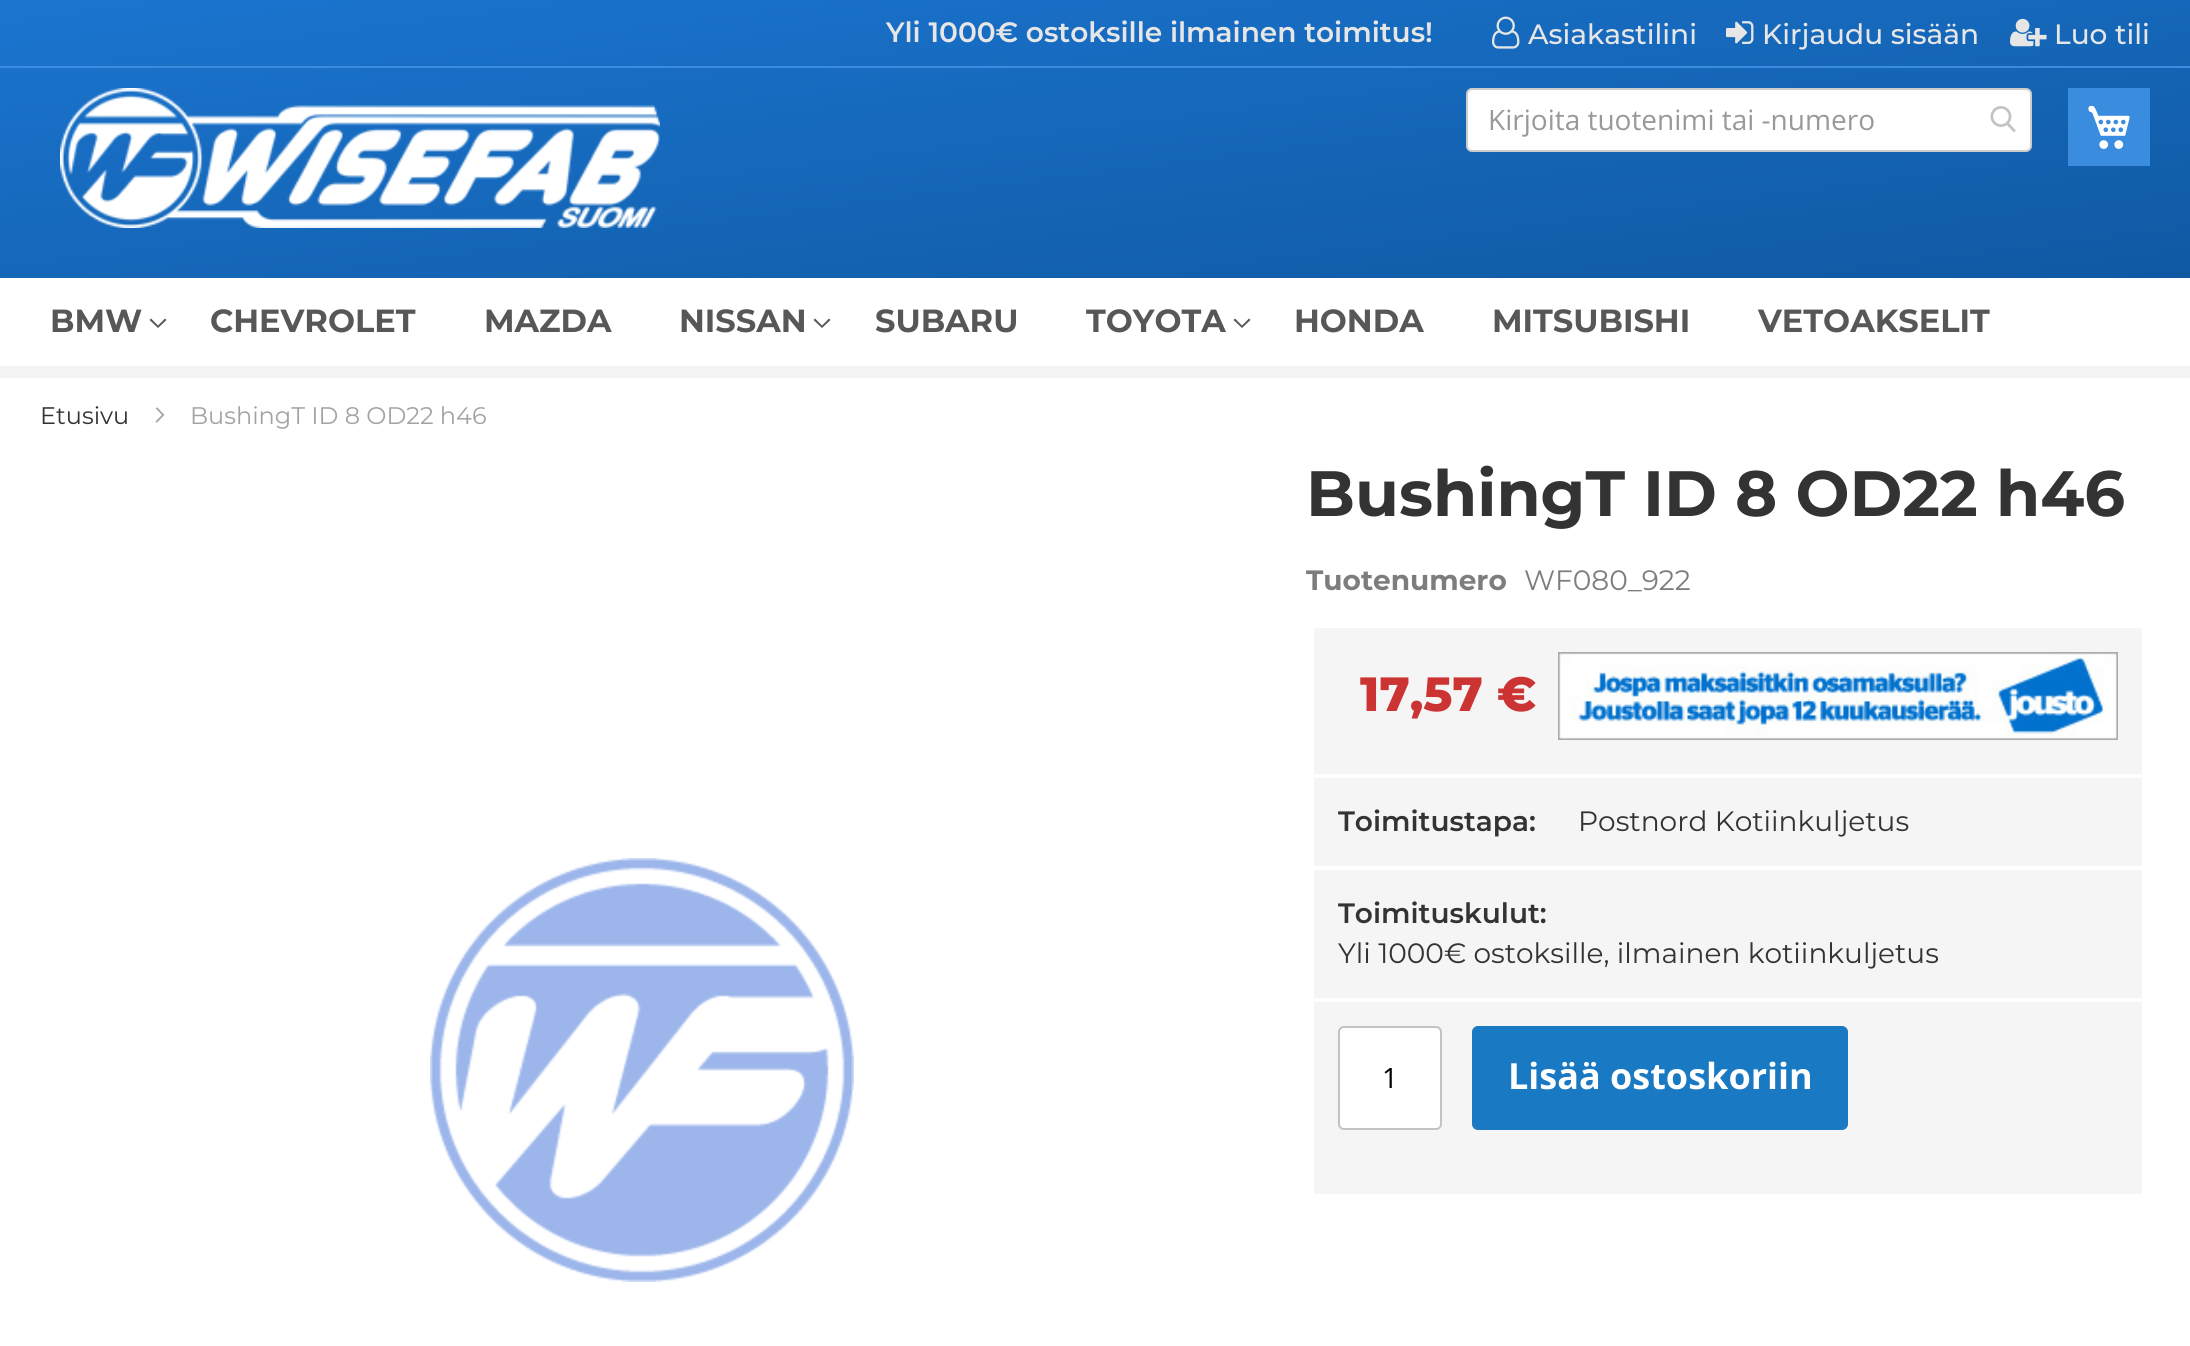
#include <cairo.h>
#include <math.h>
#include <stddef.h>

typedef struct { const char *family; double size; int italic, bold; unsigned color; } style_t;
static cairo_t *ctx;

static void ink(unsigned color) {
    cairo_set_source_rgb(ctx, (color >> 16) / 255.0, (color >> 8 & 255) / 255.0, (color & 255) / 255.0);
}

static void write(double x, double y, const char *s, const style_t *st) {
    cairo_select_font_face(ctx, st->family, st->italic ? CAIRO_FONT_SLANT_ITALIC : CAIRO_FONT_SLANT_NORMAL,
        st->bold ? CAIRO_FONT_WEIGHT_BOLD : CAIRO_FONT_WEIGHT_NORMAL);
    cairo_set_font_size(ctx, st->size);
    ink(st->color);
    cairo_move_to(ctx, x, y);
    cairo_show_text(ctx, s);
}

static void block(double x, double y, double w, double h, unsigned color) {
    ink(color);
    cairo_rectangle(ctx, x, y, w, h);
    cairo_fill(ctx);
}

static void round_path(double x, double y, double w, double h, double r) {
    cairo_new_sub_path(ctx);
    cairo_arc(ctx, x + w - r, y + h - r, r, 0, M_PI / 2);
    cairo_arc(ctx, x + r, y + h - r, r, M_PI / 2, M_PI);
    cairo_arc(ctx, x + r, y + r, r, M_PI, 1.5 * M_PI);
    cairo_arc(ctx, x + w - r, y + r, r, 1.5 * M_PI, 2 * M_PI);
    cairo_close_path(ctx);
}

static void paste(const char *path, double x, double y, double w, double h) {
    cairo_surface_t *image = cairo_image_surface_create_from_png(path);
    cairo_save(ctx);
    cairo_set_source_surface(ctx, image, x, y);
    cairo_rectangle(ctx, x, y, w, h);
    cairo_fill(ctx);
    cairo_restore(ctx);
    cairo_surface_destroy(image);
}

static const style_t s1 = {"Montserrat SemiBold", 28, 0, 0, 0xe6e6e6};
static const style_t s2 = {"Montserrat Medium", 28, 0, 0, 0xe6e6e6};
static const style_t s3 = {"Open Sans", 28, 0, 0, 0x999999};
static const style_t s4 = {"Montserrat", 32, 0, 1, 0x575757};
static const style_t s5 = {"Montserrat", 24, 0, 0, 0x333333};
static const style_t s6 = {"Montserrat", 24, 0, 0, 0xa3a3a3};
static const style_t s7 = {"Montserrat", 64, 0, 1, 0x333333};
static const style_t s8 = {"Montserrat", 28, 0, 1, 0x7d7d7d};
static const style_t s9 = {"Montserrat", 28, 0, 0, 0x7d7d7d};
static const style_t s10 = {"Montserrat ExtraBold", 48, 0, 0, 0xcc3333};
static const style_t s11 = {"Montserrat SemiBold", 28, 0, 0, 0x333333};
static const style_t s12 = {"Montserrat", 28, 0, 0, 0x333333};
static const style_t s13 = {"Open Sans", 28, 0, 0, 0x000000};
static const style_t s14 = {"Open Sans", 36, 0, 1, 0xffffff};

int main(void) {
    cairo_surface_t *surface = cairo_image_surface_create(CAIRO_FORMAT_RGB24, 2190, 1346);
    ctx = cairo_create(surface);
    cairo_font_options_t *options = cairo_font_options_create();
    cairo_font_options_set_hint_metrics(options, CAIRO_HINT_METRICS_OFF);
    cairo_font_options_set_hint_style(options, CAIRO_HINT_STYLE_NONE);
    cairo_set_font_options(ctx, options);
    cairo_set_miter_limit(ctx, 4);
    cairo_pattern_t *gradient;
    ink(0xffffff);
    cairo_paint(ctx);
    gradient = cairo_pattern_create_linear(1060, -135, 1130, 413);
    cairo_pattern_add_color_stop_rgba(gradient, 0, 0.106, 0.459, 0.812, 1);
    cairo_pattern_add_color_stop_rgba(gradient, 1, 0.059, 0.349, 0.639, 1);
    cairo_set_source(ctx, gradient);
    cairo_pattern_destroy(gradient);
    cairo_rectangle(ctx, 0, 0, 2190, 278);
    cairo_fill(ctx);
    block(0, 66, 2190, 2, 0x398cde);
    write(886, 42, "Yli 1000€ ostoksille ilmainen toimitus!", &s1);
    paste("pic1.png", 1492, 16, 28, 33);
    write(1528, 44, "Asiakastilini", &s2);
    paste("pic2.png", 1726, 21, 28, 23);
    write(1762, 44, "Kirjaudu sisään", &s2);
    paste("pic3.png", 2010, 18, 37, 29);
    write(2054, 44, "Luo tili", &s2);
    paste("pic4.png", 60, 88, 600, 140);
    ink(0xffffff);
    round_path(1467, 89, 564, 62, 5);
    cairo_fill_preserve(ctx);
    ink(0xcccccc);
    cairo_stroke(ctx);
    write(1488, 130, "Kirjoita tuotenimi tai -numero", &s3);
    paste("pic5.png", 1990, 106, 26, 26);
    block(2068, 88, 82, 78, 0x398cde);
    paste("pic6.png", 2088, 105, 42, 44);
    block(0, 366, 2190, 12, 0xf4f4f4);
    write(50, 332, "BMW", &s4);
    cairo_new_path(ctx);
    cairo_move_to(ctx, 158, 325.5);
    cairo_line_to(ctx, 151, 318.5);
    cairo_line_to(ctx, 149.5, 320);
    cairo_line_to(ctx, 158, 328);
    cairo_line_to(ctx, 166.5, 320);
    cairo_line_to(ctx, 165, 318.5);
    cairo_close_path(ctx);
    cairo_fill(ctx);
    write(210, 332, "CHEVROLET", &s4);
    write(484, 332, "MAZDA", &s4);
    write(679, 332, "NISSAN", &s4);
    cairo_new_path(ctx);
    cairo_move_to(ctx, 822, 325.5);
    cairo_line_to(ctx, 815, 318.5);
    cairo_line_to(ctx, 813.5, 320);
    cairo_line_to(ctx, 822, 328);
    cairo_line_to(ctx, 830.5, 320);
    cairo_line_to(ctx, 829, 318.5);
    cairo_close_path(ctx);
    cairo_fill(ctx);
    write(875, 332, "SUBARU", &s4);
    write(1086, 332, "TOYOTA", &s4);
    cairo_new_path(ctx);
    cairo_move_to(ctx, 1242, 325.5);
    cairo_line_to(ctx, 1235, 318.5);
    cairo_line_to(ctx, 1233.5, 320);
    cairo_line_to(ctx, 1242, 328);
    cairo_line_to(ctx, 1250.5, 320);
    cairo_line_to(ctx, 1249, 318.5);
    cairo_close_path(ctx);
    cairo_fill(ctx);
    write(1294, 332, "HONDA", &s4);
    write(1492, 332, "MITSUBISHI", &s4);
    write(1758, 332, "VETOAKSELIT", &s4);
    write(40, 424, "Etusivu", &s5);
    paste("pic7.png", 155, 407, 10, 16);
    write(190, 424, "BushingT ID 8 OD22 h46", &s6);
    paste("pic8.png", 430, 858, 424, 424);
    write(1306, 516, "BushingT ID 8 OD22 h46", &s7);
    write(1306, 590, "Tuotenumero", &s8);
    write(1524, 590, "WF080_922", &s9);
    block(1314, 628, 828, 146, 0xf5f5f5);
    write(1360, 711, "17,57 €", &s10);
    paste("pic9.png", 1558, 652, 560, 88);
    block(1314, 778, 828, 88, 0xf5f5f5);
    write(1338, 831, "Toimitustapa:", &s11);
    write(1578, 831, "Postnord Kotiinkuljetus", &s12);
    block(1314, 870, 828, 128, 0xf5f5f5);
    write(1338, 923, "Toimituskulut:", &s11);
    write(1338, 963, "Yli 1000€ ostoksille, ilmainen kotiinkuljetus", &s12);
    block(1314, 1002, 828, 192, 0xf5f5f5);
    ink(0xffffff);
    round_path(1339, 1027, 102, 102, 5);
    cairo_fill_preserve(ctx);
    ink(0xc2c2c2);
    cairo_stroke(ctx);
    write(1382, 1088, "1", &s13);
    ink(0x1979c3);
    round_path(1473, 1027, 374, 102, 5);
    cairo_fill_preserve(ctx);
    cairo_stroke(ctx);
    write(1508, 1089, "Lisää ostoskoriin", &s14);
    cairo_surface_write_to_png(surface, "screenshot.png");
    cairo_font_options_destroy(options);
    cairo_destroy(ctx);
    cairo_surface_destroy(surface);
    return 0;
}
